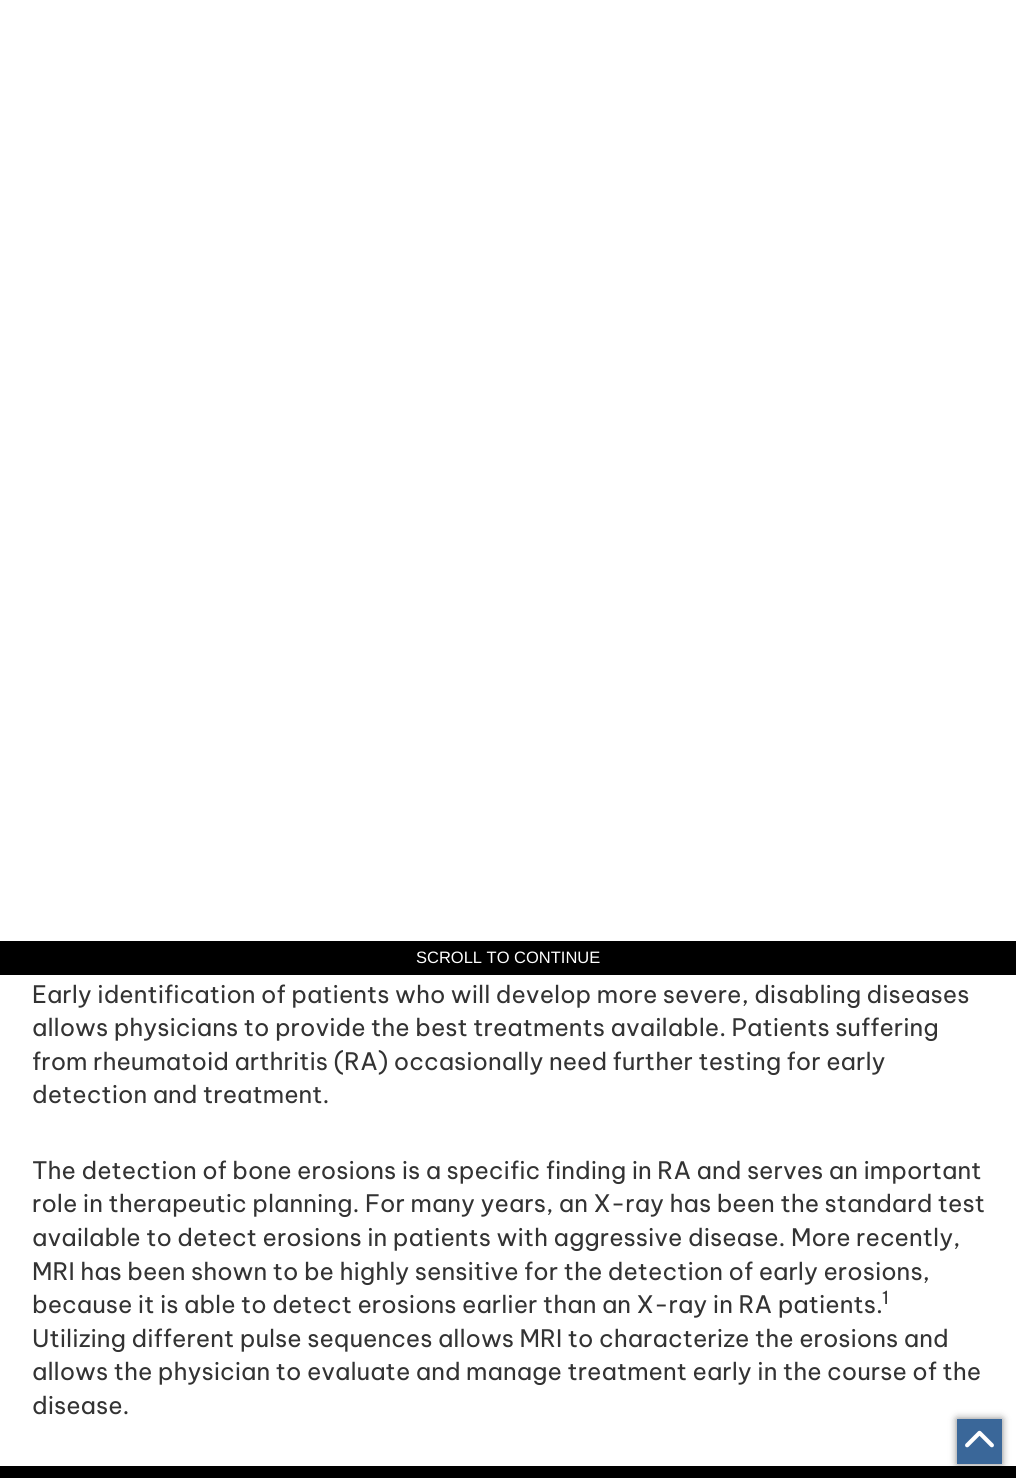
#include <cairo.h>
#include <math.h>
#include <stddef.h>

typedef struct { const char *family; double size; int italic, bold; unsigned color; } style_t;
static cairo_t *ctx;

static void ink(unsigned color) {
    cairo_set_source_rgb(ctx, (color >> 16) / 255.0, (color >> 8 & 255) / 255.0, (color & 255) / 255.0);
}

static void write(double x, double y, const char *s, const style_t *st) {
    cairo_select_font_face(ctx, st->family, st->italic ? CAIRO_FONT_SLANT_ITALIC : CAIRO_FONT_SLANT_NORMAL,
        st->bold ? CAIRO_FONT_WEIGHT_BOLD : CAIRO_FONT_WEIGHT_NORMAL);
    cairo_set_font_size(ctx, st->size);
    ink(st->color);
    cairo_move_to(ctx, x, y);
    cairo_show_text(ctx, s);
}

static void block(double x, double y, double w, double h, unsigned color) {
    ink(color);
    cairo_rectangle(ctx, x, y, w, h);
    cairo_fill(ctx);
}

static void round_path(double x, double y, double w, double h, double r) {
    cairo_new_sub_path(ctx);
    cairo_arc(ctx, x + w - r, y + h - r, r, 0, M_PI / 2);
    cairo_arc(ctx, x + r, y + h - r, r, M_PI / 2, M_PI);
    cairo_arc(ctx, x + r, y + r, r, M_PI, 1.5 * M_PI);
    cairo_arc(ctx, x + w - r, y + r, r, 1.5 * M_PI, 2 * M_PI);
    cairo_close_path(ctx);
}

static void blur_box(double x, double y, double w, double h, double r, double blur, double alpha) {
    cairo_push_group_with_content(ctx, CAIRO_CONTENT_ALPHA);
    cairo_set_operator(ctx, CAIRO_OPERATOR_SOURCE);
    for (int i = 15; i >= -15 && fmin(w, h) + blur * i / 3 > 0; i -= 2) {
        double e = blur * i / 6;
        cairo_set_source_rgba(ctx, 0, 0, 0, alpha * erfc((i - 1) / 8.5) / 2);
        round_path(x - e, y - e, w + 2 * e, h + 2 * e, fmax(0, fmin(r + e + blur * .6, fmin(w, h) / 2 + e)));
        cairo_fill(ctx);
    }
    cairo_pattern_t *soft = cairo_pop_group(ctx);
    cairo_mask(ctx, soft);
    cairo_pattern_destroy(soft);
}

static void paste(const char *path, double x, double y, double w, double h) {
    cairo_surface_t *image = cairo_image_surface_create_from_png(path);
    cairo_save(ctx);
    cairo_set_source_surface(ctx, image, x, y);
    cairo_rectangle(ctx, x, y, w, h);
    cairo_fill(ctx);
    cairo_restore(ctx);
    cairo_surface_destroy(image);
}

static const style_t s1 = {"Liberation Sans", 16.5, 0, 0, 0xffffff};
static const style_t s2 = {"Be Vietnam Pro", 24, 0, 0, 0x333333};
static const style_t s3 = {"Be Vietnam Pro", 18, 0, 0, 0x333333};

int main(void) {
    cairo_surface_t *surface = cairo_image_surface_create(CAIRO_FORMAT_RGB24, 1016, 1478);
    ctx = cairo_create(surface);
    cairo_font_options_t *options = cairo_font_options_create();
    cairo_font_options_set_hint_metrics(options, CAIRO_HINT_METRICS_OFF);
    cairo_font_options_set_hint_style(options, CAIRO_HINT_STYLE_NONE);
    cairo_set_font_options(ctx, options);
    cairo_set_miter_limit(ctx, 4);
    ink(0xffffff);
    cairo_paint(ctx);
    block(0, 941, 1016, 34, 0x000000);
    write(416, 963, "SCROLL TO CONTINUE", &s1);
    write(32, 1003, "Early identification of patients who will develop more severe, disabling diseases", &s2);
    write(32, 1036, "allows physicians to provide the best treatments available. Patients suffering", &s2);
    write(32, 1070, "from rheumatoid arthritis (RA) occasionally need further testing for early", &s2);
    write(32, 1103, "detection and treatment.", &s2);
    write(32, 1179, "The detection of bone erosions is a specific finding in RA and serves an important", &s2);
    write(32, 1212, "role in therapeutic planning. For many years, an X-ray has been the standard test", &s2);
    write(32, 1246, "available to detect erosions in patients with aggressive disease. More recently,", &s2);
    write(32, 1280, "MRI has been shown to be highly sensitive for the detection of early erosions,", &s2);
    write(32, 1313, "because it is able to detect erosions earlier than an X-ray in RA patients.", &s2);
    write(882, 1304, "1", &s3);
    write(32, 1347, "Utilizing different pulse sequences allows MRI to characterize the erosions and", &s2);
    write(32, 1380, "allows the physician to evaluate and manage treatment early in the course of the", &s2);
    write(32, 1414, "disease.", &s2);
    block(0, 1466, 1016, 12, 0x000000);
    ink(0x000000);
    blur_box(957, 1419, 45, 45, 0, 4, 0.5);
    block(957, 1419, 45, 45, 0x3a6799);
    paste("pic1.png", 965, 1430, 29, 18);
    cairo_surface_write_to_png(surface, "screenshot.png");
    cairo_font_options_destroy(options);
    cairo_destroy(ctx);
    cairo_surface_destroy(surface);
    return 0;
}
